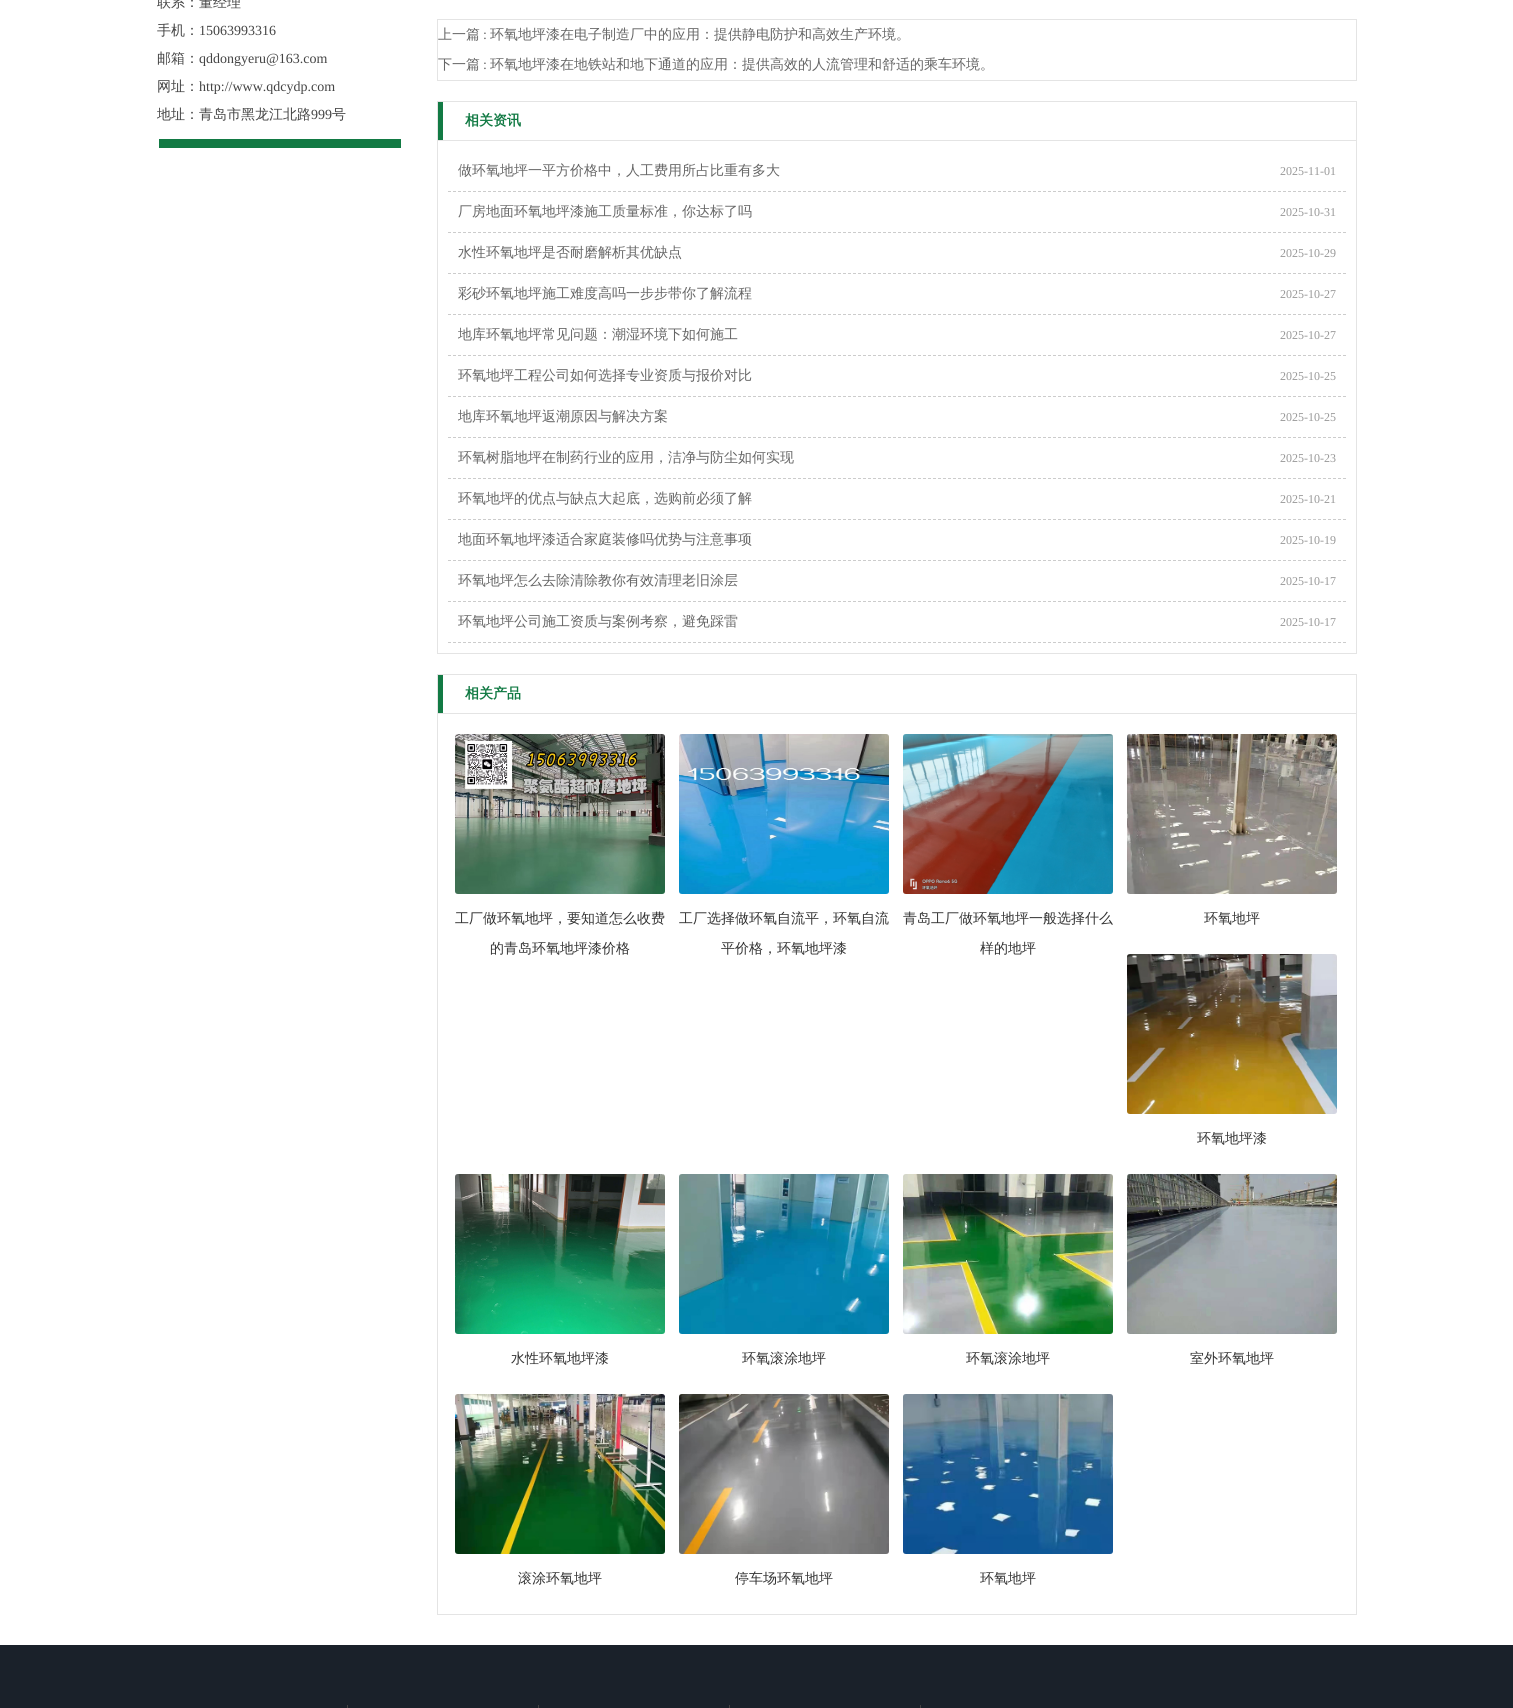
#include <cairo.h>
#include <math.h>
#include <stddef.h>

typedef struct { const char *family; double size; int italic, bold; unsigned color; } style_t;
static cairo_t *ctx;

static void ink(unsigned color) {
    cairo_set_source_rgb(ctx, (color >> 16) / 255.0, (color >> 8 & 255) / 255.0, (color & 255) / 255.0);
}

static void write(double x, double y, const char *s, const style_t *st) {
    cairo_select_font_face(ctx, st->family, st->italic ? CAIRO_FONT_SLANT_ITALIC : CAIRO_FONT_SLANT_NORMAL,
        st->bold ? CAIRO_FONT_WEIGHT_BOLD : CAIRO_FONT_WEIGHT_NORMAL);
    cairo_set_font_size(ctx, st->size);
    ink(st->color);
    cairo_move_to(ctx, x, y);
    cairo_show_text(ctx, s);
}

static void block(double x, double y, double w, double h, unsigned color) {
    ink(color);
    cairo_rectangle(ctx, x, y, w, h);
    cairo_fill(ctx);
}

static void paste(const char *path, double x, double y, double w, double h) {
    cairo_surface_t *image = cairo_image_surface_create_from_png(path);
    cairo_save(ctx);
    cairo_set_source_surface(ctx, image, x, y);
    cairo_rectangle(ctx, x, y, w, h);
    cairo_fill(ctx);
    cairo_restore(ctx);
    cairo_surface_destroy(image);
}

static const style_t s1 = {"WenQuanYi Zen Hei Medium", 14, 0, 0, 0x444444};
static const style_t s2 = {"Liberation Serif", 14, 0, 0, 0x444444};
static const style_t s3 = {"WenQuanYi Zen Hei Medium", 14, 0, 0, 0x666666};
static const style_t s4 = {"Liberation Serif", 14, 0, 0, 0x666666};
static const style_t s5 = {"WenQuanYi Zen Hei", 14, 0, 1, 0x127a44};
static const style_t s6 = {"Liberation Serif", 12, 0, 0, 0x999999};
static const style_t s7 = {"WenQuanYi Zen Hei Medium", 14, 0, 0, 0x333333};

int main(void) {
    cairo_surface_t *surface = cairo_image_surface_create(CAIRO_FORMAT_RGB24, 1513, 1708);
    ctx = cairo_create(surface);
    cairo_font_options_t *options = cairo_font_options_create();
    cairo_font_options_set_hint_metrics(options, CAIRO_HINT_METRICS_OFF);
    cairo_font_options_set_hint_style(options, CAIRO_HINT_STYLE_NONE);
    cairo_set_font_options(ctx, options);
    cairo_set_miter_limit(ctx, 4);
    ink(0xffffff);
    cairo_paint(ctx);
    block(159, 139, 242, 9, 0x127a44);
    write(157, 7, "联系：董经理", &s1);
    write(157, 35, "手机：", &s1);
    write(199, 35, "15063993316", &s2);
    write(157, 63, "邮箱：", &s1);
    write(199, 63, "qddongyeru@163.com", &s2);
    write(157, 91, "网址：", &s1);
    write(199, 91, "http://www.qdcydp.com", &s2);
    cairo_save(ctx);
    cairo_rectangle(ctx, 157, 0, 245, 139);
    cairo_clip(ctx);
    write(157, 119, "地址：青岛市黑龙江北路", &s1);
    cairo_restore(ctx);
    write(311, 119, "999", &s2);
    write(332, 119, "号", &s1);
    cairo_rectangle(ctx, 437.5, 19.5, 919, 61);
    ink(0xe4e4e4);
    cairo_set_line_width(ctx, 1);
    cairo_stroke(ctx);
    write(438, 39, "上一篇", &s3);
    write(483, 39, ":", &s4);
    write(490, 39, "环氧地坪漆在电子制造厂中的应用：提供静电防护和高效生产环境。", &s3);
    write(438, 69, "下一篇", &s3);
    write(483, 69, ":", &s4);
    write(490, 69, "环氧地坪漆在地铁站和地下通道的应用：提供高效的人流管理和舒适的乘车环境。", &s3);
    cairo_rectangle(ctx, 437.5, 101.5, 919, 39);
    ink(0xe4e4e4);
    cairo_stroke(ctx);
    block(438, 102, 5, 38, 0x127a44);
    write(465, 125, "相关资讯", &s5);
    block(1356, 141, 1, 513, 0xe4e4e4);
    block(437, 653, 920, 1, 0xe4e4e4);
    block(437, 141, 1, 513, 0xe4e4e4);
    cairo_new_path(ctx);
    cairo_move_to(ctx, 448, 191.5);
    cairo_line_to(ctx, 1346, 191.5);
    ink(0xcccccc);
    cairo_set_dash(ctx, (double[]){3, 2}, 2, 0);
    cairo_stroke(ctx);
    write(458, 175, "做环氧地坪一平方价格中，人工费用所占比重有多大", &s3);
    write(1280, 175, "2025-11-01", &s6);
    cairo_new_path(ctx);
    cairo_move_to(ctx, 448, 232.5);
    cairo_line_to(ctx, 1346, 232.5);
    ink(0xcccccc);
    cairo_stroke(ctx);
    write(458, 216, "厂房地面环氧地坪漆施工质量标准，你达标了吗", &s3);
    write(1280, 216, "2025-10-31", &s6);
    cairo_new_path(ctx);
    cairo_move_to(ctx, 448, 273.5);
    cairo_line_to(ctx, 1346, 273.5);
    ink(0xcccccc);
    cairo_stroke(ctx);
    write(458, 257, "水性环氧地坪是否耐磨解析其优缺点", &s3);
    write(1280, 257, "2025-10-29", &s6);
    cairo_new_path(ctx);
    cairo_move_to(ctx, 448, 314.5);
    cairo_line_to(ctx, 1346, 314.5);
    ink(0xcccccc);
    cairo_stroke(ctx);
    write(458, 298, "彩砂环氧地坪施工难度高吗一步步带你了解流程", &s3);
    write(1280, 298, "2025-10-27", &s6);
    cairo_new_path(ctx);
    cairo_move_to(ctx, 448, 355.5);
    cairo_line_to(ctx, 1346, 355.5);
    ink(0xcccccc);
    cairo_stroke(ctx);
    write(458, 339, "地库环氧地坪常见问题：潮湿环境下如何施工", &s3);
    write(1280, 339, "2025-10-27", &s6);
    cairo_new_path(ctx);
    cairo_move_to(ctx, 448, 396.5);
    cairo_line_to(ctx, 1346, 396.5);
    ink(0xcccccc);
    cairo_stroke(ctx);
    write(458, 380, "环氧地坪工程公司如何选择专业资质与报价对比", &s3);
    write(1280, 380, "2025-10-25", &s6);
    cairo_new_path(ctx);
    cairo_move_to(ctx, 448, 437.5);
    cairo_line_to(ctx, 1346, 437.5);
    ink(0xcccccc);
    cairo_stroke(ctx);
    write(458, 421, "地库环氧地坪返潮原因与解决方案", &s3);
    write(1280, 421, "2025-10-25", &s6);
    cairo_new_path(ctx);
    cairo_move_to(ctx, 448, 478.5);
    cairo_line_to(ctx, 1346, 478.5);
    ink(0xcccccc);
    cairo_stroke(ctx);
    write(458, 462, "环氧树脂地坪在制药行业的应用，洁净与防尘如何实现", &s3);
    write(1280, 462, "2025-10-23", &s6);
    cairo_new_path(ctx);
    cairo_move_to(ctx, 448, 519.5);
    cairo_line_to(ctx, 1346, 519.5);
    ink(0xcccccc);
    cairo_stroke(ctx);
    write(458, 503, "环氧地坪的优点与缺点大起底，选购前必须了解", &s3);
    write(1280, 503, "2025-10-21", &s6);
    cairo_new_path(ctx);
    cairo_move_to(ctx, 448, 560.5);
    cairo_line_to(ctx, 1346, 560.5);
    ink(0xcccccc);
    cairo_stroke(ctx);
    write(458, 544, "地面环氧地坪漆适合家庭装修吗优势与注意事项", &s3);
    write(1280, 544, "2025-10-19", &s6);
    cairo_new_path(ctx);
    cairo_move_to(ctx, 448, 601.5);
    cairo_line_to(ctx, 1346, 601.5);
    ink(0xcccccc);
    cairo_stroke(ctx);
    write(458, 585, "环氧地坪怎么去除清除教你有效清理老旧涂层", &s3);
    write(1280, 585, "2025-10-17", &s6);
    cairo_new_path(ctx);
    cairo_move_to(ctx, 448, 642.5);
    cairo_line_to(ctx, 1346, 642.5);
    ink(0xcccccc);
    cairo_stroke(ctx);
    write(458, 626, "环氧地坪公司施工资质与案例考察，避免踩雷", &s3);
    write(1280, 626, "2025-10-17", &s6);
    cairo_rectangle(ctx, 437.5, 674.5, 919, 39);
    ink(0xe4e4e4);
    cairo_set_dash(ctx, NULL, 0, 0);
    cairo_stroke(ctx);
    block(438, 675, 5, 38, 0x127a44);
    write(465, 698, "相关产品", &s5);
    block(1356, 714, 1, 901, 0xe4e4e4);
    block(437, 1614, 920, 1, 0xe4e4e4);
    block(437, 714, 1, 901, 0xe4e4e4);
    paste("pic1.png", 455, 734, 210, 160);
    write(455, 923, "工厂做环氧地坪，要知道怎么收费", &s7);
    write(490, 953, "的青岛环氧地坪漆价格", &s7);
    paste("pic2.png", 679, 734, 210, 160);
    write(679, 923, "工厂选择做环氧自流平，环氧自流", &s7);
    write(721, 953, "平价格，环氧地坪漆", &s7);
    paste("pic3.png", 903, 734, 210, 160);
    write(903, 923, "青岛工厂做环氧地坪一般选择什么", &s7);
    write(980, 953, "样的地坪", &s7);
    paste("pic4.png", 1127, 734, 210, 160);
    write(1204, 923, "环氧地坪", &s7);
    paste("pic5.png", 1127, 954, 210, 160);
    write(1197, 1143, "环氧地坪漆", &s7);
    paste("pic6.png", 455, 1174, 210, 160);
    write(511, 1363, "水性环氧地坪漆", &s7);
    paste("pic7.png", 679, 1174, 210, 160);
    write(742, 1363, "环氧滚涂地坪", &s7);
    paste("pic8.png", 903, 1174, 210, 160);
    write(966, 1363, "环氧滚涂地坪", &s7);
    paste("pic9.png", 1127, 1174, 210, 160);
    write(1190, 1363, "室外环氧地坪", &s7);
    paste("pic10.png", 455, 1394, 210, 160);
    write(518, 1583, "滚涂环氧地坪", &s7);
    paste("pic11.png", 679, 1394, 210, 160);
    write(735, 1583, "停车场环氧地坪", &s7);
    paste("pic12.png", 903, 1394, 210, 160);
    write(980, 1583, "环氧地坪", &s7);
    block(0, 1645, 1513, 63, 0x1a212a);
    block(347, 1705, 1, 3, 0x444444);
    block(538, 1705, 1, 3, 0x444444);
    block(729, 1705, 1, 3, 0x444444);
    block(920, 1705, 1, 3, 0x444444);
    cairo_surface_write_to_png(surface, "screenshot.png");
    cairo_font_options_destroy(options);
    cairo_destroy(ctx);
    cairo_surface_destroy(surface);
    return 0;
}
